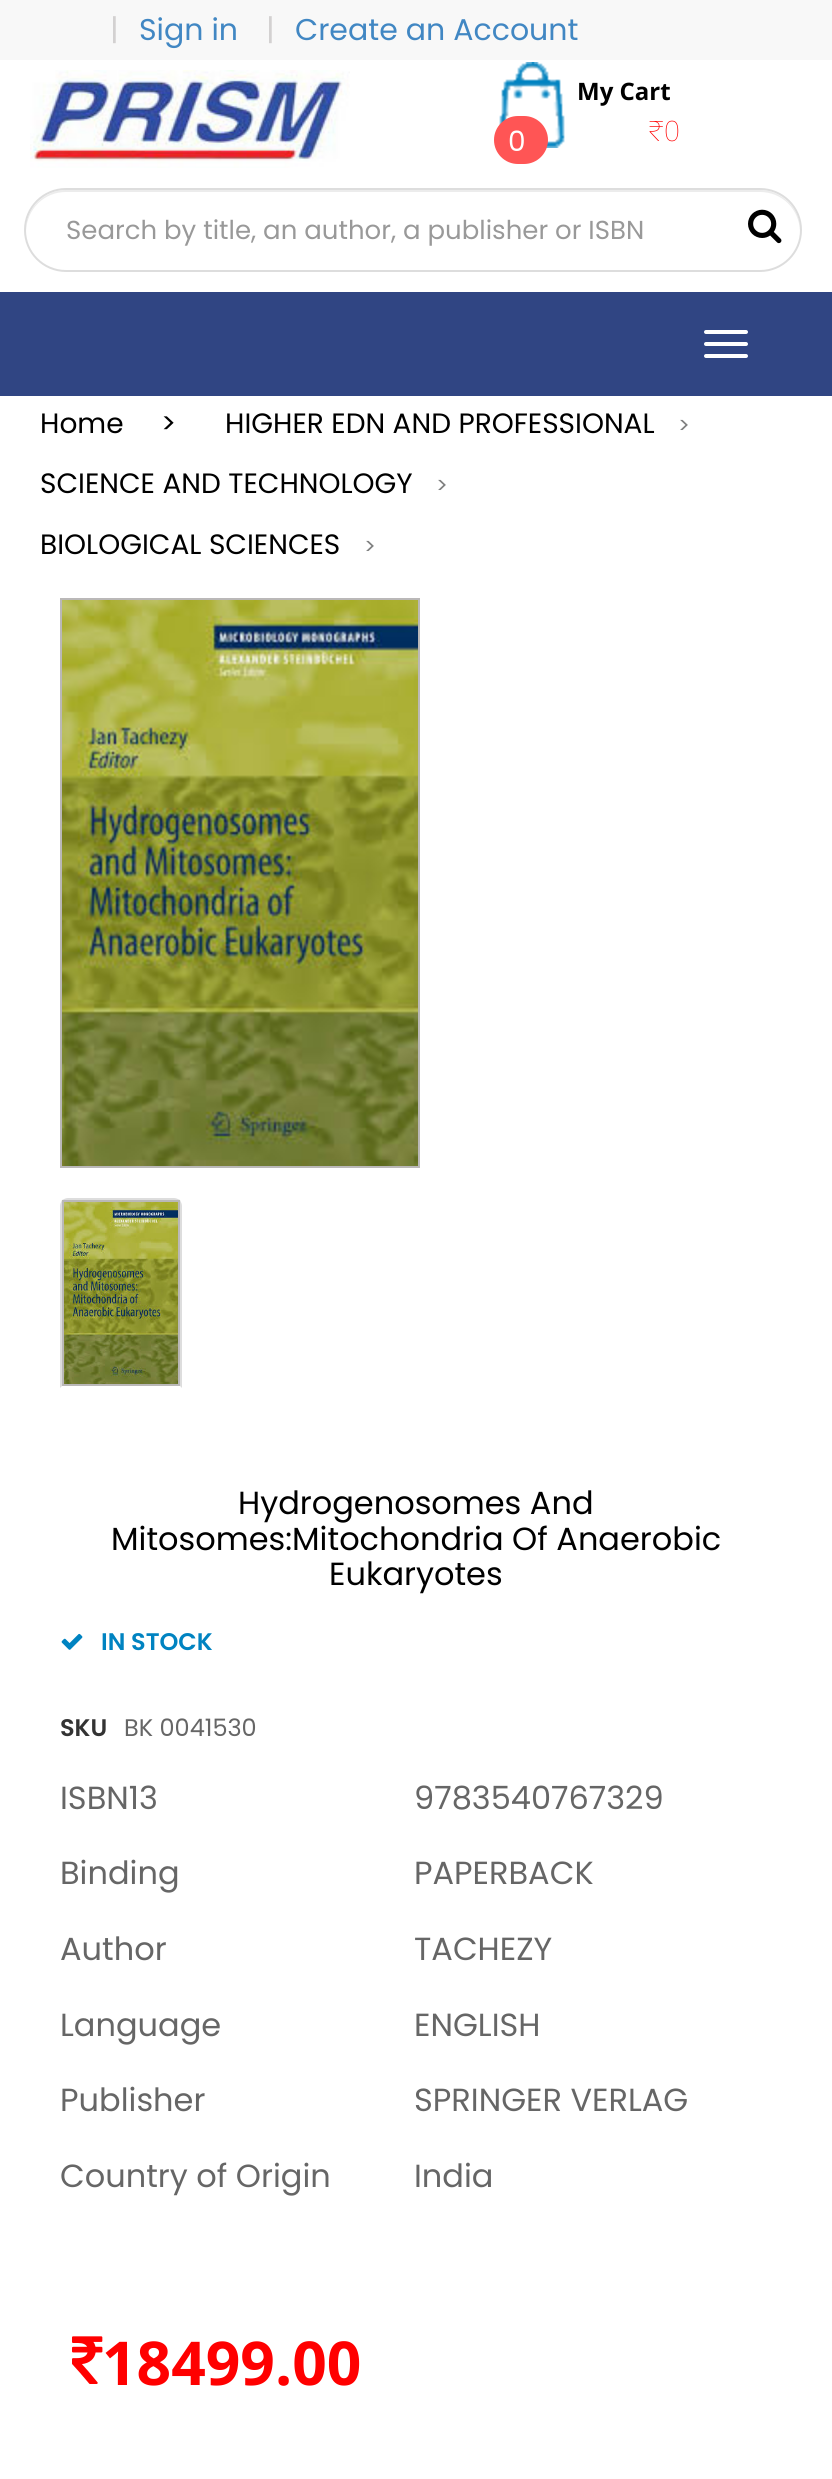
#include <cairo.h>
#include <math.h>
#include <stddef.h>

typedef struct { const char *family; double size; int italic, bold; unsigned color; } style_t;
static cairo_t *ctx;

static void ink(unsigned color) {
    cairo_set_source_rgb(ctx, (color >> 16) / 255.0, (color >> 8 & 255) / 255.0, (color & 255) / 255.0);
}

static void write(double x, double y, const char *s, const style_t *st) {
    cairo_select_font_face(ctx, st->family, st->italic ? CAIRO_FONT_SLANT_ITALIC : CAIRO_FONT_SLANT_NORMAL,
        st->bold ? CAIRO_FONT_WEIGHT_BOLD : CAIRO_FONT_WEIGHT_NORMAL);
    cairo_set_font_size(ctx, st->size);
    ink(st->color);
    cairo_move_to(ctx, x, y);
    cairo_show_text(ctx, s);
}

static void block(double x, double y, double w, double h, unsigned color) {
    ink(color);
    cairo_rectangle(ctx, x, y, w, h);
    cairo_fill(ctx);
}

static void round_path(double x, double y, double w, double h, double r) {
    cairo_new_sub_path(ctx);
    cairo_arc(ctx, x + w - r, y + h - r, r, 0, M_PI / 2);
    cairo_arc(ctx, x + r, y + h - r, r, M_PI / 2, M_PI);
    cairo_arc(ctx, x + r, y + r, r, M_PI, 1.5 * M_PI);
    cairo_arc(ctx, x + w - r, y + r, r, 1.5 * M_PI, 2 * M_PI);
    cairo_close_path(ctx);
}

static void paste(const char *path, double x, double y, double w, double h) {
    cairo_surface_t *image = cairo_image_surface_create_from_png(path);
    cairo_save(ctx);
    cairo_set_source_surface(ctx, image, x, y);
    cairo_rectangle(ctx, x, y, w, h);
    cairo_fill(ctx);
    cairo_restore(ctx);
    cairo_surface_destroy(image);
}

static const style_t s1 = {"Poppins", 30, 0, 0, 0xd3d1d1};
static const style_t s2 = {"Poppins", 30, 0, 0, 0x4187c3};
static const style_t s3 = {"Open Sans", 24, 0, 1, 0x000000};
static const style_t s4 = {"Poppins", 28, 0, 0, 0xffffff};
static const style_t s5 = {"Noto Sans Thin", 28, 0, 0, 0xff0000};
static const style_t s6 = {"Poppins", 26, 0, 0, 0x999999};
static const style_t s7 = {"Poppins", 28, 0, 0, 0x000000};
static const style_t s8 = {"Poppins", 22, 0, 0, 0x7f8080};
static const style_t s9 = {"Poppins", 32, 0, 0, 0x000000};
static const style_t s10 = {"Poppins SemiBold", 24, 0, 0, 0x0083c1};
static const style_t s11 = {"Poppins SemiBold", 24, 0, 0, 0x333333};
static const style_t s12 = {"Poppins", 24, 0, 0, 0x666666};
static const style_t s13 = {"Poppins", 32, 0, 0, 0x666666};
static const style_t s14 = {"Open Sans", 60.5, 0, 1, 0xff0000};

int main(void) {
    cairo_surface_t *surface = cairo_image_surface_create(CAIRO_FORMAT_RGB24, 832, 2479);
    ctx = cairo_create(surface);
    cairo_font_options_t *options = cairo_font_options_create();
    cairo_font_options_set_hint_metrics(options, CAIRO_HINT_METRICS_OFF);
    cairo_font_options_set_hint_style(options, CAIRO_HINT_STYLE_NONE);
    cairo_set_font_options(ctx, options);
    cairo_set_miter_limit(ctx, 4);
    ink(0xffffff);
    cairo_paint(ctx);
    block(0, 0, 832, 60, 0xf8f8f8);
    write(110, 40, "|", &s1);
    write(139, 40, "Sign in", &s2);
    write(266, 40, "|", &s1);
    write(295, 40, "Create an Account", &s2);
    paste("pic1.png", 30, 70, 320, 98);
    paste("pic2.png", 499, 62, 66, 86);
    write(577, 100, "My Cart", &s3);
    ink(0xff5555);
    round_path(494, 116, 54, 48, 24);
    cairo_fill(ctx);
    write(508, 151, "0", &s4);
    write(648, 141, "₹0", &s5);
    ink(0xececec);
    cairo_new_path(ctx);
    cairo_move_to(ctx, 66, 192);
    cairo_line_to(ctx, 760, 192);
    cairo_curve_to(ctx, 782, 192, 799, 209, 800, 231);
    cairo_curve_to(ctx, 801, 209, 782, 190, 760, 190);
    cairo_line_to(ctx, 66, 190);
    cairo_curve_to(ctx, 44, 190, 25, 209, 26, 231);
    cairo_curve_to(ctx, 27, 209, 44, 192, 66, 192);
    cairo_close_path(ctx);
    cairo_fill(ctx);
    round_path(25, 189, 776, 82, 41);
    ink(0xdddddd);
    cairo_stroke(ctx);
    write(66, 239, "Search by title, an author, a publisher or ISBN", &s6);
    paste("pic3.png", 748, 209, 34, 35);
    block(0, 292, 832, 104, 0x304583);
    ink(0xffffff);
    round_path(704, 330, 44, 4, 2);
    cairo_fill(ctx);
    round_path(704, 342, 44, 4, 2);
    cairo_fill(ctx);
    round_path(704, 354, 44, 4, 2);
    cairo_fill(ctx);
    write(40, 433, "Home", &s7);
    write(161, 433, ">", &s7);
    write(225, 433, "HIGHER EDN AND PROFESSIONAL", &s7);
    write(678, 433, ">", &s8);
    write(40, 493, "SCIENCE AND TECHNOLOGY", &s7);
    write(436, 493, ">", &s8);
    write(40, 554, "BIOLOGICAL SCIENCES", &s7);
    write(364, 554, ">", &s8);
    cairo_rectangle(ctx, 61, 599, 358, 568);
    ink(0xbab8b8);
    cairo_stroke(ctx);
    paste("pic4.png", 62, 600, 356, 566);
    ink(0xdddddd);
    cairo_new_path(ctx);
    cairo_move_to(ctx, 68, 1198);
    cairo_curve_to(ctx, 66, 1198, 64, 1199, 62, 1200);
    cairo_line_to(ctx, 64, 1202);
    cairo_line_to(ctx, 67, 1200);
    cairo_line_to(ctx, 175, 1200);
    cairo_line_to(ctx, 178, 1202);
    cairo_line_to(ctx, 180, 1200);
    cairo_curve_to(ctx, 178, 1199, 176, 1198, 174, 1198);
    cairo_close_path(ctx);
    cairo_fill(ctx);
    cairo_new_path(ctx);
    cairo_move_to(ctx, 182, 1388);
    cairo_line_to(ctx, 182, 1206);
    cairo_curve_to(ctx, 182, 1204, 181, 1202, 180, 1200);
    cairo_line_to(ctx, 178, 1202);
    cairo_line_to(ctx, 180, 1205);
    cairo_line_to(ctx, 180, 1386);
    cairo_close_path(ctx);
    cairo_fill(ctx);
    cairo_new_path(ctx);
    cairo_move_to(ctx, 60, 1388);
    cairo_line_to(ctx, 62, 1386);
    cairo_line_to(ctx, 62, 1205);
    cairo_line_to(ctx, 64, 1202);
    cairo_line_to(ctx, 62, 1200);
    cairo_curve_to(ctx, 61, 1202, 60, 1204, 60, 1206);
    cairo_close_path(ctx);
    cairo_fill(ctx);
    cairo_rectangle(ctx, 63, 1201, 116, 184);
    ink(0xbab8b8);
    cairo_stroke(ctx);
    paste("pic5.png", 64, 1202, 114, 182);
    write(238, 1514, "Hydrogenosomes And", &s9);
    write(111, 1550, "Mitosomes:Mitochondria Of Anaerobic", &s9);
    write(329, 1585, "Eukaryotes", &s9);
    paste("pic6.png", 61, 1633, 22, 17);
    write(101, 1650, "IN STOCK", &s10);
    write(60, 1736, "SKU", &s11);
    write(124, 1736, "BK 0041530", &s12);
    write(60, 1809, "ISBN13", &s13);
    write(414, 1809, "9783540767329", &s13);
    write(60, 1884, "Binding", &s13);
    write(414, 1884, "PAPERBACK", &s13);
    write(60, 1960, "Author", &s13);
    write(414, 1960, "TACHEZY", &s13);
    write(60, 2036, "Language", &s13);
    write(414, 2036, "ENGLISH", &s13);
    write(60, 2111, "Publisher", &s13);
    write(414, 2111, "SPRINGER VERLAG", &s13);
    write(60, 2187, "Country of Origin", &s13);
    write(414, 2187, "India", &s13);
    paste("pic7.png", 72, 2336, 31, 48);
    write(102, 2385, "18499.00", &s14);
    cairo_surface_write_to_png(surface, "screenshot.png");
    cairo_font_options_destroy(options);
    cairo_destroy(ctx);
    cairo_surface_destroy(surface);
    return 0;
}
